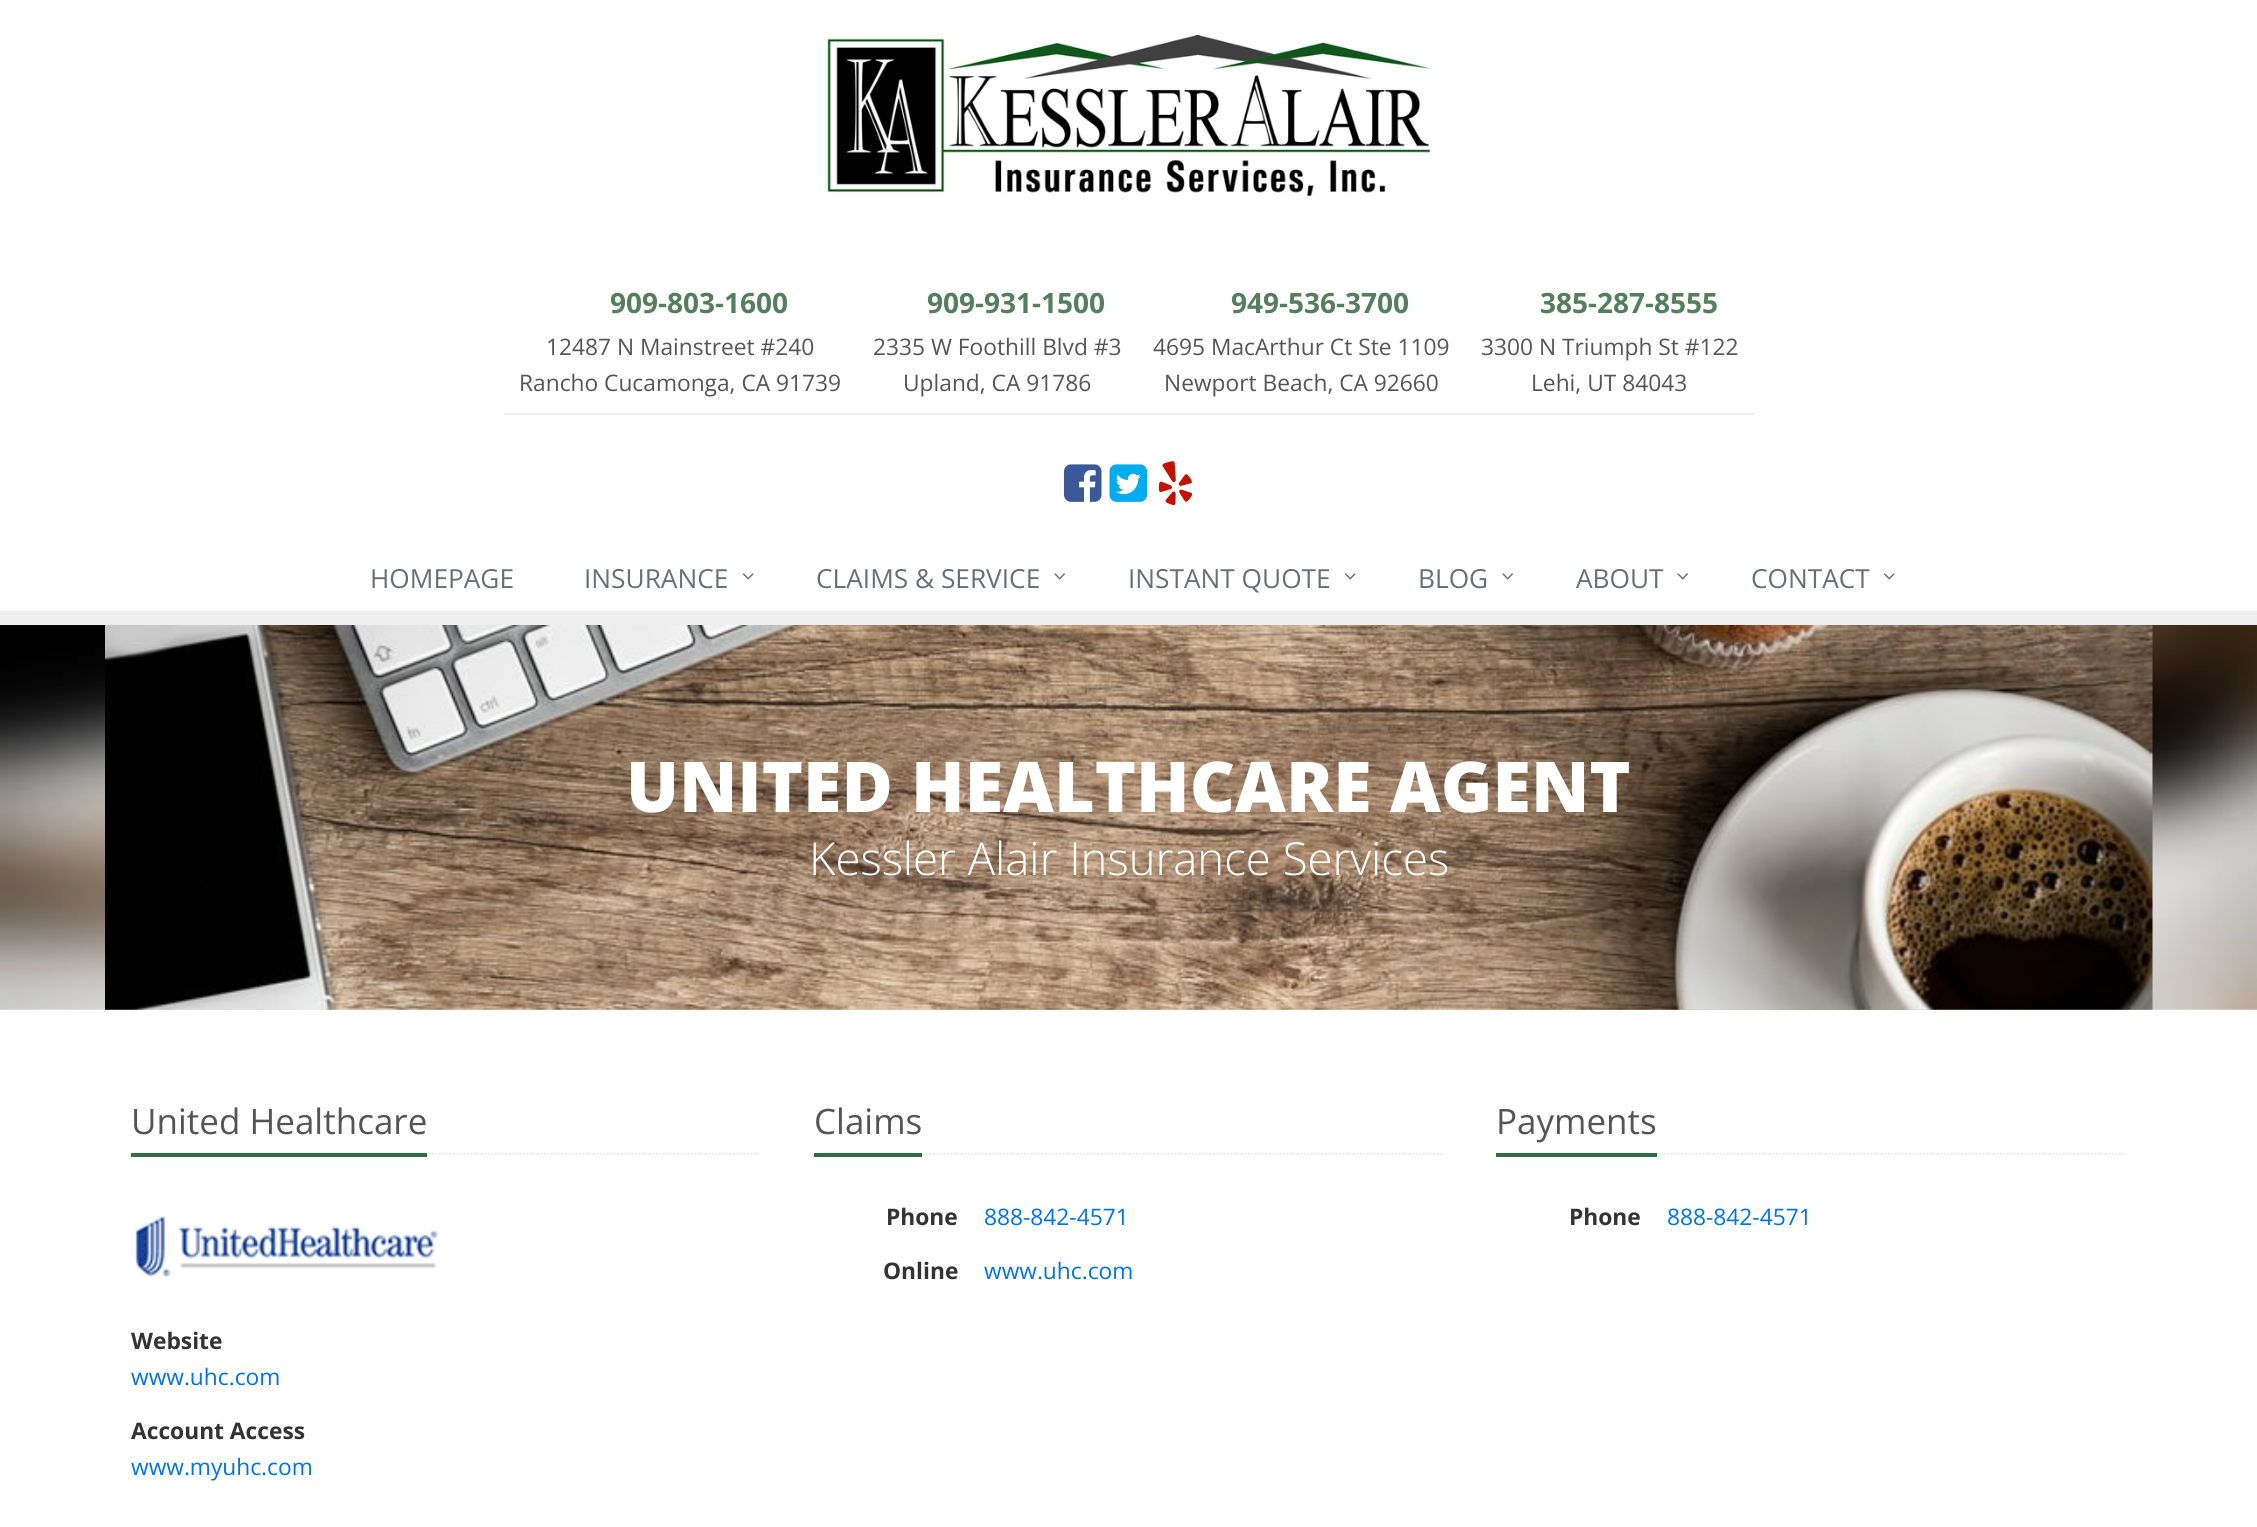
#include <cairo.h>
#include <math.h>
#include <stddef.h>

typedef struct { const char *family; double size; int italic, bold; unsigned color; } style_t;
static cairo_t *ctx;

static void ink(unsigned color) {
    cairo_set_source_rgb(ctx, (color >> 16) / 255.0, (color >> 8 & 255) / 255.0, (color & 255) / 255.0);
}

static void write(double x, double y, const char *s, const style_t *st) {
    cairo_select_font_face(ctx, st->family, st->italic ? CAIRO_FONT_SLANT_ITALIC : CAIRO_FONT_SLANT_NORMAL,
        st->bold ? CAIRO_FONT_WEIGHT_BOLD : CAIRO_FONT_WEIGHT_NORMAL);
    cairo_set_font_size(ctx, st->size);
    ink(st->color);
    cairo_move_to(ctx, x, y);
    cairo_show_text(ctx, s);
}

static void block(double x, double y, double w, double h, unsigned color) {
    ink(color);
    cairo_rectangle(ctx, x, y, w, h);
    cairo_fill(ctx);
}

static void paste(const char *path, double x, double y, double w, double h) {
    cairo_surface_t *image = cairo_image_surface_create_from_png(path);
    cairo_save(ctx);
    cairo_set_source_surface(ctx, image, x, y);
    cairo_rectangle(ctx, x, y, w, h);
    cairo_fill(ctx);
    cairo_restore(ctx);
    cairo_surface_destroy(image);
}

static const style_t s1 = {"Open Sans", 28, 0, 1, 0x557f5c};
static const style_t s2 = {"Open Sans", 22.75, 0, 0, 0x555555};
static const style_t s3 = {"Open Sans", 26.25, 0, 0, 0x687074};
static const style_t s4 = {"Open Sans ExtraBold", 70, 0, 0, 0xffffff};
static const style_t s5 = {"Open Sans Light", 45.5, 0, 0, 0xffffff};
static const style_t s6 = {"Open Sans", 35, 0, 0, 0x555555};
static const style_t s7 = {"Open Sans", 22.75, 0, 1, 0x333333};
static const style_t s8 = {"Open Sans", 22.75, 0, 0, 0x0073e5};

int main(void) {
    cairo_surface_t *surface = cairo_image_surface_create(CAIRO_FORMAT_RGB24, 2257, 1527);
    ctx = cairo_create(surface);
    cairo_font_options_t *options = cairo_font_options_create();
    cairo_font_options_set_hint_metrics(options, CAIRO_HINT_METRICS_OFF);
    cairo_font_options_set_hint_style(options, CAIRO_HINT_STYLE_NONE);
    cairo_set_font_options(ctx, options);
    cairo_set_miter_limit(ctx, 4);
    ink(0xffffff);
    cairo_paint(ctx);
    block(0, 611, 2257, 14, 0xeeeeee);
    paste("pic1.png", 827, 35, 603, 161);
    block(504, 413, 1250, 2, 0xeeeeee);
    write(610, 313, "909-803-1600", &s1);
    write(546, 355, "12487 N Mainstreet #240", &s2);
    write(519, 391, "Rancho Cucamonga, CA 91739", &s2);
    write(927, 313, "909-931-1500", &s1);
    write(873, 355, "2335 W Foothill Blvd #3", &s2);
    write(903, 391, "Upland, CA 91786", &s2);
    write(1231, 313, "949-536-3700", &s1);
    write(1153, 355, "4695 MacArthur Ct Ste 1109", &s2);
    write(1164, 391, "Newport Beach, CA 92660", &s2);
    write(1540, 313, "385-287-8555", &s1);
    write(1481, 355, "3300 N Triumph St #122", &s2);
    write(1531, 391, "Lehi, UT 84043", &s2);
    paste("pic2.png", 1064, 464, 38, 38);
    paste("pic3.png", 1109, 464, 38, 38);
    paste("pic4.png", 1158, 461, 35, 44);
    write(370, 588, "HOMEPAGE", &s3);
    write(584, 588, "INSURANCE", &s3);
    paste("pic5.png", 742, 573, 12, 7);
    write(816, 588, "CLAIMS & SERVICE", &s3);
    paste("pic6.png", 1054, 573, 11, 7);
    write(1128, 588, "INSTANT QUOTE", &s3);
    paste("pic5.png", 1344, 573, 12, 7);
    write(1418, 588, "BLOG", &s3);
    paste("pic6.png", 1502, 573, 11, 7);
    write(1576, 588, "ABOUT", &s3);
    paste("pic6.png", 1677, 573, 11, 7);
    write(1751, 588, "CONTACT", &s3);
    paste("pic5.png", 1883, 573, 12, 7);
    paste("pic7.png", 0, 625, 2257, 385);
    write(626, 812, "UNITED HEALTHCARE AGENT", &s4);
    write(809, 875, "Kessler Alair Insurance Services", &s5);
    cairo_new_path(ctx);
    cairo_move_to(ctx, 131, 1154);
    cairo_line_to(ctx, 761, 1154);
    ink(0xe4e9f0);
    cairo_set_line_width(ctx, 1.8);
    cairo_set_dash(ctx, (double[]){1.75, 1.75}, 2, 0);
    cairo_stroke(ctx);
    block(131, 1153, 296, 4, 0x2f6d41);
    write(131, 1134, "United Healthcare", &s6);
    paste("pic8.png", 134, 1216, 304, 62);
    write(131, 1349, "Website", &s7);
    write(131, 1385, "www.uhc.com", &s8);
    write(131, 1439, "Account Access", &s7);
    write(131, 1475, "www.myuhc.com", &s8);
    cairo_new_path(ctx);
    cairo_move_to(ctx, 814, 1154);
    cairo_line_to(ctx, 1444, 1154);
    ink(0xe4e9f0);
    cairo_stroke(ctx);
    block(814, 1153, 108, 4, 0x2f6d41);
    write(814, 1134, "Claims", &s6);
    write(886, 1225, "Phone", &s7);
    write(984, 1225, "888-842-4571", &s8);
    write(883, 1279, "Online", &s7);
    write(984, 1279, "www.uhc.com", &s8);
    cairo_new_path(ctx);
    cairo_move_to(ctx, 1496, 1154);
    cairo_line_to(ctx, 2126, 1154);
    ink(0xe4e9f0);
    cairo_stroke(ctx);
    block(1496, 1153, 161, 4, 0x2f6d41);
    write(1496, 1134, "Payments", &s6);
    write(1569, 1225, "Phone", &s7);
    write(1667, 1225, "888-842-4571", &s8);
    cairo_surface_write_to_png(surface, "screenshot.png");
    cairo_font_options_destroy(options);
    cairo_destroy(ctx);
    cairo_surface_destroy(surface);
    return 0;
}
